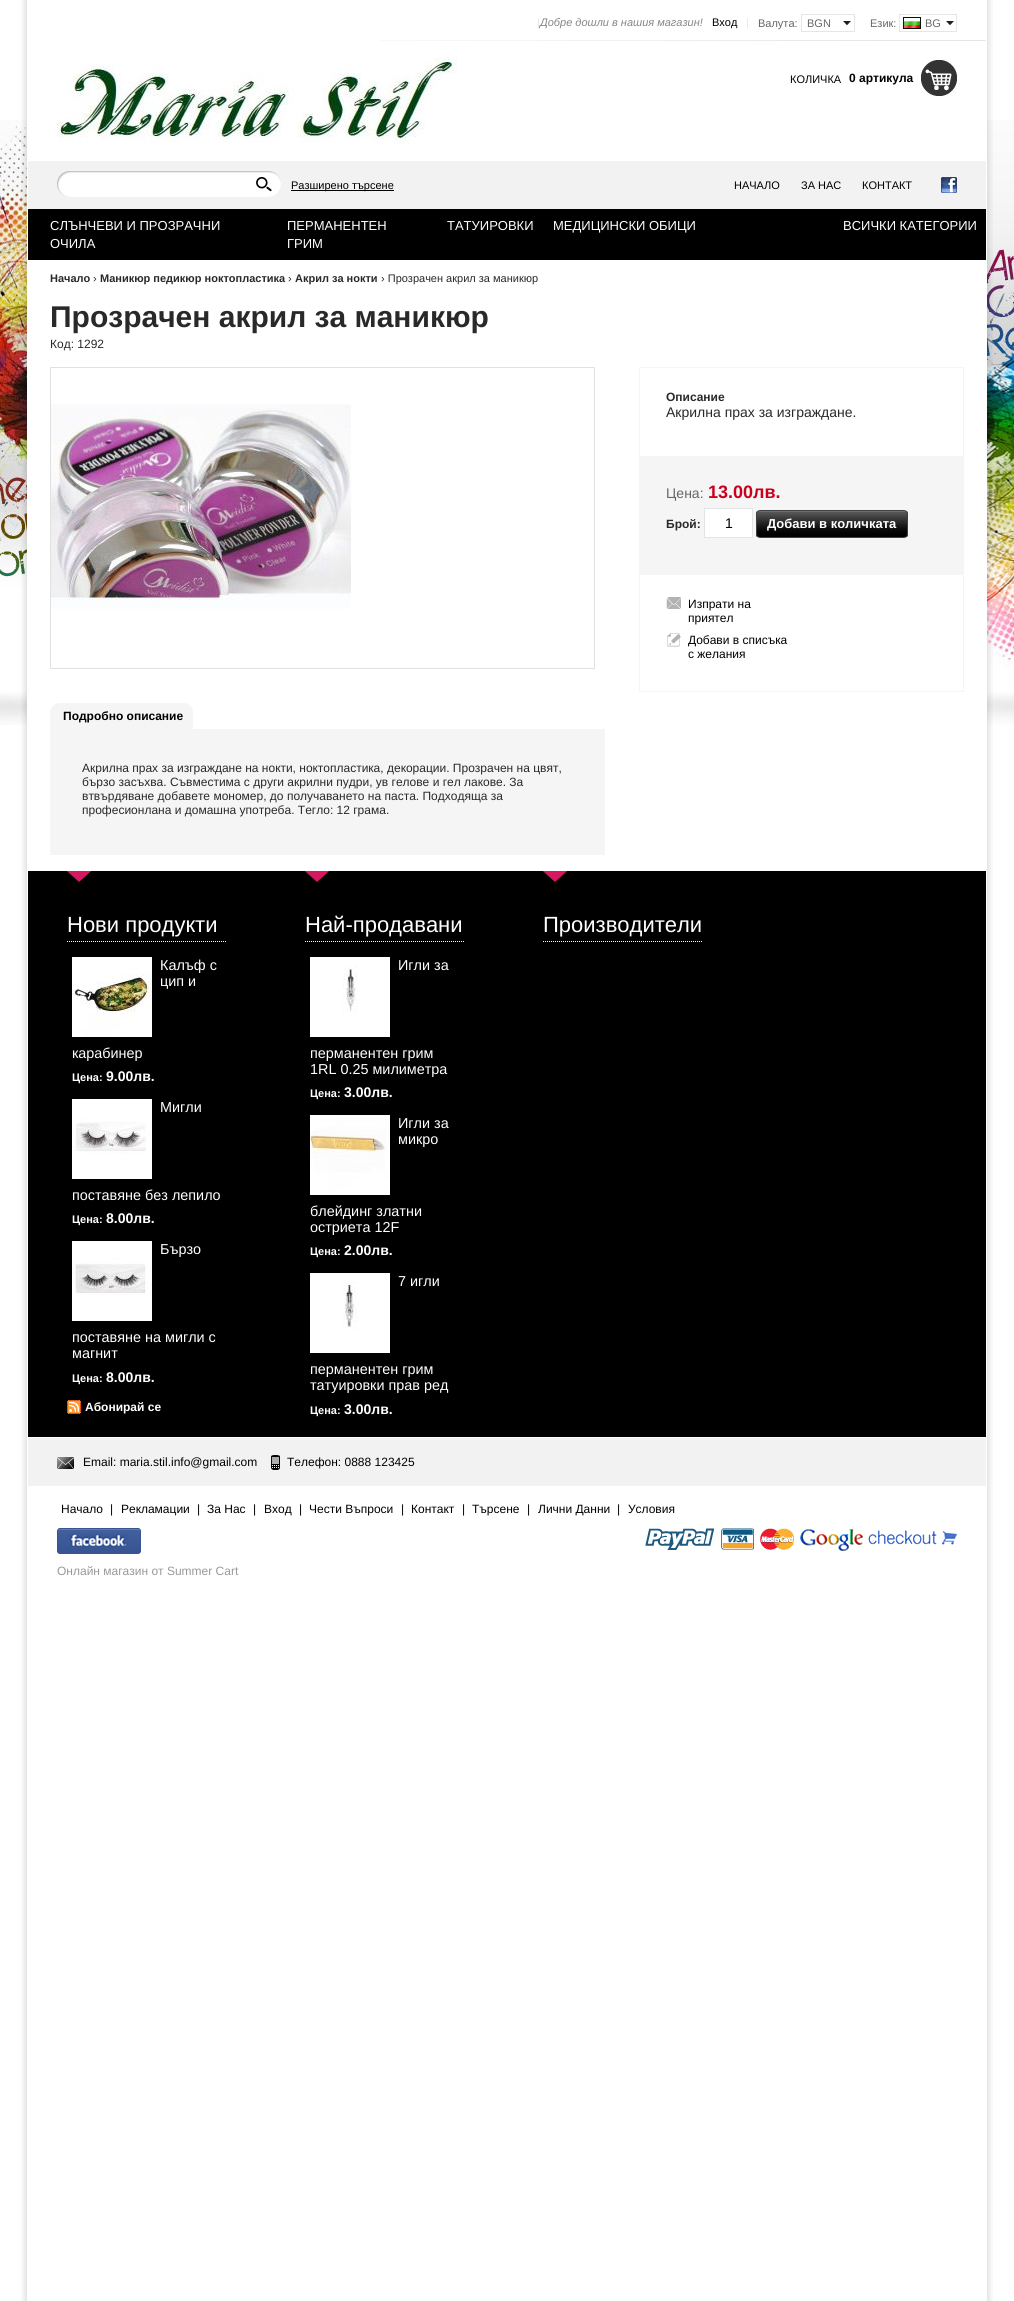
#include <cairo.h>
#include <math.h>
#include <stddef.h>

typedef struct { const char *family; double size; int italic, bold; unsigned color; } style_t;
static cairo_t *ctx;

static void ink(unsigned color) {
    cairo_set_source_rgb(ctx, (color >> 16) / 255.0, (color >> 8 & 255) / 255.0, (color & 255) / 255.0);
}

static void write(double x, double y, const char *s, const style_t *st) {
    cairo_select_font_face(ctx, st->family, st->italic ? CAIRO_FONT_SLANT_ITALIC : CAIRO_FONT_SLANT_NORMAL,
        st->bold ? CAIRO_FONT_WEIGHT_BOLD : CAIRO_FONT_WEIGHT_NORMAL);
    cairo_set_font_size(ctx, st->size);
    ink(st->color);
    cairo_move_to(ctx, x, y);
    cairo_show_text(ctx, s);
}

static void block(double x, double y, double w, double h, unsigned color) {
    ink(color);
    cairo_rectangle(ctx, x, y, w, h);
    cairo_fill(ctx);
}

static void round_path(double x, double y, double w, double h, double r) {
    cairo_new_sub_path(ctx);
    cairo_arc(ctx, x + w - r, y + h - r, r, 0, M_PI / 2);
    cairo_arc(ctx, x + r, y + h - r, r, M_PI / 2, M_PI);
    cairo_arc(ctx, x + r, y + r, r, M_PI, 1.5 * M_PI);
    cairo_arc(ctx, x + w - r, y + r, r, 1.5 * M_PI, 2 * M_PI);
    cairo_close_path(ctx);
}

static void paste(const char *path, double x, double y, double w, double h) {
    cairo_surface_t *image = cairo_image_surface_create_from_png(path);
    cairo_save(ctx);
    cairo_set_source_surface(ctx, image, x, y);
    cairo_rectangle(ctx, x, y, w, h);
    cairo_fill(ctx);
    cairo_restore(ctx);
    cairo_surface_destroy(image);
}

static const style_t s1 = {"Liberation Sans", 11, 1, 0, 0xe6e6e6};
static const style_t s2 = {"Liberation Sans", 11, 1, 0, 0x858585};
static const style_t s3 = {"Liberation Sans", 11, 0, 0, 0x000000};
static const style_t s4 = {"Liberation Sans", 11, 0, 0, 0xe6e6e6};
static const style_t s5 = {"Liberation Sans", 11, 0, 0, 0x666666};
static const style_t s6 = {"Liberation Sans", 12, 0, 1, 0x000000};
static const style_t s7 = {"Liberation Sans", 13, 0, 0, 0xffffff};
static const style_t s8 = {"Liberation Sans", 11, 0, 1, 0x292929};
static const style_t s9 = {"Liberation Sans", 11, 0, 0, 0x292929};
static const style_t s10 = {"Liberation Sans", 30, 0, 1, 0x292929};
static const style_t s11 = {"Liberation Sans", 12, 0, 0, 0x292929};
static const style_t s12 = {"Liberation Sans", 12, 0, 1, 0x292929};
static const style_t s13 = {"Liberation Sans", 14, 0, 0, 0x292929};
static const style_t s14 = {"Liberation Sans", 14, 0, 0, 0x666666};
static const style_t s15 = {"Liberation Sans", 18, 0, 1, 0xca001d};
static const style_t s16 = {"Liberation Sans", 14, 0, 0, 0x000000};
static const style_t s17 = {"Liberation Sans", 13, 0, 1, 0xffffff};
static const style_t s18 = {"Liberation Sans", 12, 0, 0, 0x000000};
static const style_t s19 = {"Liberation Sans", 22, 0, 0, 0xffffff};
static const style_t s20 = {"Liberation Sans", 14.4, 0, 0, 0xffffff};
static const style_t s21 = {"Liberation Sans", 11, 0, 1, 0xffffff};
static const style_t s22 = {"Liberation Sans", 14, 0, 1, 0xffffff};
static const style_t s23 = {"Liberation Sans", 12, 0, 1, 0xffffff};
static const style_t s24 = {"Liberation Sans", 12, 0, 0, 0x999999};

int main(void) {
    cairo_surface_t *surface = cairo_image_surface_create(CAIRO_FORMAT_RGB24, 1014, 2301);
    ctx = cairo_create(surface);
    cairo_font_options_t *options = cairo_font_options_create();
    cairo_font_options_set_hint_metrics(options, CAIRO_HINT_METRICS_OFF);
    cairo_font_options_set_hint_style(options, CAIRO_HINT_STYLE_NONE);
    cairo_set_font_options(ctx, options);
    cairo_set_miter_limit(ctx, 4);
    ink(0xffffff);
    cairo_paint(ctx);
    paste("pic1.png", 21, 1611, 972, 690);
    paste("pic2.png", 0, 120, 1014, 605);
    paste("pic3.png", 21, 0, 972, 1611);
    paste("pic4.png", 380, 40, 606, 1);
    write(537, 26, "|", &s1);
    write(540, 26, "Добре дошли в нашия магазин!", &s2);
    write(712, 26, "Вход", &s3);
    write(746, 26, "|", &s4);
    write(758, 27, "Валута:", &s5);
    paste("pic5.png", 843, 21, 8, 4);
    cairo_rectangle(ctx, 801.5, 14.5, 53, 17);
    ink(0xe6e6e6);
    cairo_set_line_width(ctx, 1);
    cairo_stroke(ctx);
    write(807, 27, "BGN", &s5);
    write(870, 27, "Език:", &s5);
    paste("pic5.png", 946, 21, 8, 4);
    cairo_rectangle(ctx, 899.5, 14.5, 57, 17);
    ink(0xe6e6e6);
    cairo_stroke(ctx);
    paste("pic6.png", 903, 17, 18, 12);
    write(925, 27, "BG", &s5);
    paste("pic7.png", 57, 57, 400, 88);
    write(790, 83, "КОЛИЧКА", &s3);
    write(849, 82, "0 артикула", &s6);
    paste("pic8.png", 921, 60, 36, 36);
    block(28, 161, 958, 48, 0xf2f2f2);
    paste("pic9.png", 57, 171, 224, 26);
    paste("pic10.png", 256, 177, 16, 15);
    block(291, 190, 103, 1, 0x000000);
    write(291, 189, "Разширено търсене", &s3);
    write(734, 189, "НАЧАЛО", &s3);
    write(801, 189, "ЗА НАС", &s3);
    write(862, 189, "КОНТАКТ", &s3);
    paste("pic11.png", 941, 177, 16, 16);
    block(28, 209, 958, 51, 0x000000);
    write(50, 230, "СЛЪНЧЕВИ И ПРОЗРАЧНИ", &s7);
    write(50, 248, "ОЧИЛА", &s7);
    write(287, 230, "ПЕРМАНЕНТЕН", &s7);
    write(287, 248, "ГРИМ", &s7);
    write(447, 230, "ТАТУИРОВКИ", &s7);
    write(553, 230, "МЕДИЦИНСКИ ОБИЦИ", &s7);
    write(843, 230, "ВСИЧКИ КАТЕГОРИИ", &s7);
    write(50, 282, "Начало", &s8);
    write(93, 282, "›", &s9);
    write(100, 282, "Маникюр педикюр ноктопластика", &s8);
    write(288, 282, "›", &s9);
    write(295, 282, "Акрил за нокти", &s8);
    write(381, 282, "› Прозрачен акрил за маникюр", &s9);
    write(50, 327, "Прозрачен акрил за маникюр", &s10);
    write(50, 348, "Код: 1292", &s11);
    cairo_rectangle(ctx, 50.5, 367.5, 544, 301);
    ink(0xe1e1e1);
    cairo_stroke(ctx);
    paste("pic12.png", 51, 404, 300, 205);
    cairo_rectangle(ctx, 639.5, 367.5, 324, 89);
    ink(0xf5f5f5);
    cairo_stroke(ctx);
    write(666, 401, "Описание", &s12);
    write(666, 417, "Акрилна прах за изграждане.", &s13);
    block(639, 457, 325, 117, 0xf5f5f5);
    write(666, 498, "Цена:", &s14);
    write(708, 498, "13.00лв.", &s15);
    write(666, 528, "Брой:", &s12);
    ink(0xffffff);
    cairo_rectangle(ctx, 704.5, 508.5, 48, 29);
    cairo_fill_preserve(ctx);
    ink(0xe4e4e4);
    cairo_stroke(ctx);
    write(725, 528, "1", &s16);
    paste("pic13.png", 756, 511, 152, 26);
    round_path(756.5, 510.5, 151, 27, 3.5);
    ink(0x404040);
    cairo_stroke(ctx);
    write(767, 528, "Добави в количката", &s17);
    cairo_rectangle(ctx, 639.5, 574.5, 324, 117);
    ink(0xf5f5f5);
    cairo_stroke(ctx);
    paste("pic14.png", 666, 597, 15, 12);
    write(688, 608, "Изпрати на", &s18);
    write(688, 622, "приятел", &s18);
    paste("pic15.png", 667, 633, 14, 14);
    write(688, 644, "Добави в списъка", &s18);
    write(688, 658, "с желания", &s18);
    paste("pic16.png", 50, 703, 8, 26);
    paste("pic17.png", 58, 703, 135, 26);
    write(63, 720, "Подробно описание", &s6);
    block(50, 729, 555, 126, 0xf5f5f5);
    write(82, 772, "Акрилна прах за изграждане на нокти, ноктопластика, декорации. Прозрачен на цвят,", &s11);
    write(82, 786, "бързо засъхва. Съвместима с други акрилни пудри, ув гелове и гел лакове. За", &s11);
    write(82, 800, "втвърдяване добавете мономер, до получаването на паста. Подходяща за", &s11);
    write(82, 814, "професионлана и домашна употреба. Тегло: 12 грама.", &s11);
    block(28, 871, 958, 566, 0x000000);
    paste("pic18.png", 67, 871, 24, 11);
    cairo_new_path(ctx);
    cairo_move_to(ctx, 67, 941.5);
    cairo_line_to(ctx, 227, 941.5);
    ink(0xffffff);
    cairo_set_dash(ctx, (double[]){1, 1}, 2, 0);
    cairo_stroke(ctx);
    write(67, 932, "Нови продукти", &s19);
    paste("pic19.png", 72, 957, 80, 80);
    write(160, 970, "Калъф с", &s20);
    write(160, 986, "цип и", &s20);
    write(72, 1058, "карабинер", &s20);
    write(72, 1081, "Цена:", &s21);
    write(106, 1081, "9.00лв.", &s22);
    paste("pic20.png", 72, 1099, 80, 80);
    write(160, 1112, "Мигли", &s20);
    write(72, 1200, "поставяне без лепило", &s20);
    write(72, 1223, "Цена:", &s21);
    write(106, 1223, "8.00лв.", &s22);
    paste("pic21.png", 72, 1241, 80, 80);
    write(160, 1254, "Бързо", &s20);
    write(72, 1342, "поставяне на мигли с", &s20);
    write(72, 1358, "магнит", &s20);
    write(72, 1382, "Цена:", &s21);
    write(106, 1382, "8.00лв.", &s22);
    paste("pic22.png", 67, 1400, 14, 14);
    write(85, 1411, "Абонирай се", &s23);
    paste("pic18.png", 305, 871, 24, 11);
    cairo_new_path(ctx);
    cairo_move_to(ctx, 305, 941.5);
    cairo_line_to(ctx, 465, 941.5);
    cairo_stroke(ctx);
    write(305, 932, "Най-продавани", &s19);
    paste("pic23.png", 310, 957, 80, 80);
    write(398, 970, "Игли за", &s20);
    write(310, 1058, "перманентен грим", &s20);
    write(310, 1074, "1RL 0.25 милиметра", &s20);
    write(310, 1097, "Цена:", &s21);
    write(344, 1097, "3.00лв.", &s22);
    paste("pic24.png", 310, 1115, 80, 80);
    write(398, 1128, "Игли за", &s20);
    write(398, 1144, "микро", &s20);
    write(310, 1216, "блейдинг златни", &s20);
    write(310, 1232, "остриета 12F", &s20);
    write(310, 1255, "Цена:", &s21);
    write(344, 1255, "2.00лв.", &s22);
    paste("pic25.png", 310, 1273, 80, 80);
    write(398, 1286, "7 игли", &s20);
    write(310, 1374, "перманентен грим", &s20);
    write(310, 1390, "татуировки прав ред", &s20);
    write(310, 1414, "Цена:", &s21);
    write(344, 1414, "3.00лв.", &s22);
    paste("pic18.png", 543, 871, 24, 11);
    cairo_new_path(ctx);
    cairo_move_to(ctx, 543, 941.5);
    cairo_line_to(ctx, 703, 941.5);
    cairo_stroke(ctx);
    write(543, 932, "Производители", &s19);
    block(28, 1438, 958, 48, 0xf2f2f2);
    paste("pic26.png", 57, 1457, 17, 12);
    write(83, 1466, "Email: maria.stil.info@gmail.com", &s18);
    paste("pic27.png", 271, 1455, 9, 15);
    write(287, 1466, "Телефон: 0888 123425", &s18);
    write(61, 1513, "Начало", &s18);
    write(110, 1513, "|", &s18);
    write(121, 1513, "Рекламации", &s18);
    write(197, 1513, "|", &s18);
    write(207, 1513, "За Нас", &s18);
    write(253, 1513, "|", &s18);
    write(264, 1513, "Вход", &s18);
    write(299, 1513, "|", &s18);
    write(309, 1513, "Чести Въпроси", &s18);
    write(401, 1513, "|", &s18);
    write(411, 1513, "Контакт", &s18);
    write(462, 1513, "|", &s18);
    write(472, 1513, "Търсене", &s18);
    write(527, 1513, "|", &s18);
    write(538, 1513, "Лични Данни", &s18);
    write(617, 1513, "|", &s18);
    write(628, 1513, "Условия", &s18);
    paste("pic28.png", 57, 1528, 84, 26);
    paste("pic29.png", 645, 1528, 69, 22);
    paste("pic30.png", 721, 1528, 33, 22);
    paste("pic31.png", 760, 1528, 34, 22);
    paste("pic32.png", 800, 1529, 157, 22);
    write(57, 1575, "Онлайн магазин от Summer Cart", &s24);
    cairo_surface_write_to_png(surface, "screenshot.png");
    cairo_font_options_destroy(options);
    cairo_destroy(ctx);
    cairo_surface_destroy(surface);
    return 0;
}
